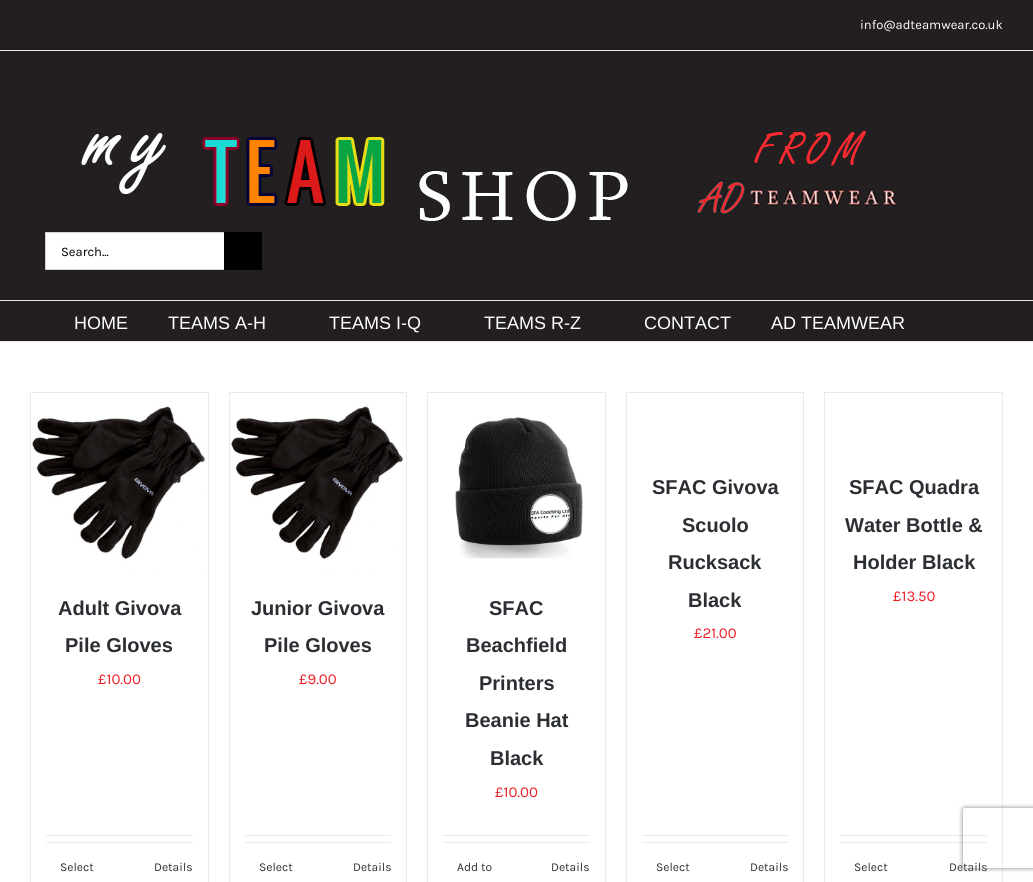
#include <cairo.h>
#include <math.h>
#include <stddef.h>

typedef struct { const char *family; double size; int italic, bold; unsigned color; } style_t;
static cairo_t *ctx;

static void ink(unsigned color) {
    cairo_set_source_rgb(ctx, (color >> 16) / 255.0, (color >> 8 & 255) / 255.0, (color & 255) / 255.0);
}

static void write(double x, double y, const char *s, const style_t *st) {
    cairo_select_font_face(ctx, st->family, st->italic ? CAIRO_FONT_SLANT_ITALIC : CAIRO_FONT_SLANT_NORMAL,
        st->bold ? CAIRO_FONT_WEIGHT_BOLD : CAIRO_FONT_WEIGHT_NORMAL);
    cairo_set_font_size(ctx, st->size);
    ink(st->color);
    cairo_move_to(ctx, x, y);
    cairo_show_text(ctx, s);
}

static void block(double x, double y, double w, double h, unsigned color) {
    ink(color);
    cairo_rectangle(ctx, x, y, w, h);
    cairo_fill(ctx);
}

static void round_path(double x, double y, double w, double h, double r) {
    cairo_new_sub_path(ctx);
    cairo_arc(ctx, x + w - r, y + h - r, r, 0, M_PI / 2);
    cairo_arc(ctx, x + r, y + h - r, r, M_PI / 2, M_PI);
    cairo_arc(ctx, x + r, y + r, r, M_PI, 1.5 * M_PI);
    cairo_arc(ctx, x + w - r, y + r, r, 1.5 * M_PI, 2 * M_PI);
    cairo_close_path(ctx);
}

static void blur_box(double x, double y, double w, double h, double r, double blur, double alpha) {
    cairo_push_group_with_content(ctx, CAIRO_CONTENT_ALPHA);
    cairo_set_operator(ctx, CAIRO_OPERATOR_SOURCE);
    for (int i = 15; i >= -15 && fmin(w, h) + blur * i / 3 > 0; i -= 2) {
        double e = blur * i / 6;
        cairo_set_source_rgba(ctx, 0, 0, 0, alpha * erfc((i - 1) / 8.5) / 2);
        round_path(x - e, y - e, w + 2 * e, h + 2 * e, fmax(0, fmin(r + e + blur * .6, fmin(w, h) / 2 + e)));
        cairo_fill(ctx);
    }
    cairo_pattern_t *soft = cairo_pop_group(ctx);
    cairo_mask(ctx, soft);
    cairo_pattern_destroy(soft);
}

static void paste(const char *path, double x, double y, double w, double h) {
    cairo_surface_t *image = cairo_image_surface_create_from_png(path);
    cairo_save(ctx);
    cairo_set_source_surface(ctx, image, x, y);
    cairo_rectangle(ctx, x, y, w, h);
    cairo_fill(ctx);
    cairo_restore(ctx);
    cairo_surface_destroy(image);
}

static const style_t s1 = {"Karla", 13, 0, 0, 0xffffff};
static const style_t s2 = {"Karla", 13, 0, 0, 0x000000};
static const style_t s3 = {"Liberation Sans", 18, 0, 0, 0xffffff};
static const style_t s4 = {"Liberation Sans", 20, 0, 1, 0x2b2e32};
static const style_t s5 = {"Karla", 15, 0, 0, 0xed1c24};
static const style_t s6 = {"Karla", 12, 0, 0, 0x2b2e32};

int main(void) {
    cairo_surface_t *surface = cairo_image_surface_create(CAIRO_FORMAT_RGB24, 1033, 882);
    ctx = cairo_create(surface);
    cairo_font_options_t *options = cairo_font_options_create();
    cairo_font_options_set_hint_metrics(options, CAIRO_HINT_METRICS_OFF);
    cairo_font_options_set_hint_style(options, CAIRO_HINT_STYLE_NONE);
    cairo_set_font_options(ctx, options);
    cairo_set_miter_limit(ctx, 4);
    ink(0xffffff);
    cairo_paint(ctx);
    block(0, 0, 1033, 50, 0x231f20);
    block(0, 50, 1033, 1, 0xeaeaea);
    write(860, 29, "info@adteamwear.co.uk", &s1);
    block(0, 51, 1033, 249, 0x231f20);
    block(0, 300, 1033, 1, 0xeaeaea);
    paste("pic1.png", 79, 128, 823, 96);
    block(46, 233, 178, 36, 0xffffff);
    block(45, 232, 179, 1, 0xd2d2d2);
    block(45, 269, 179, 1, 0xd2d2d2);
    block(45, 232, 1, 38, 0xd2d2d2);
    write(61, 256, "Search...", &s2);
    block(224, 232, 38, 38, 0x000000);
    block(0, 301, 1033, 40, 0x231f20);
    block(0, 341, 1033, 1, 0xeaeaea);
    write(74, 329, "HOME", &s3);
    write(168, 329, "TEAMS A-H", &s3);
    write(329, 329, "TEAMS I-Q", &s3);
    write(484, 329, "TEAMS R-Z", &s3);
    write(644, 329, "CONTACT", &s3);
    write(771, 329, "AD TEAMWEAR", &s3);
    block(30, 392, 179, 1, 0xeaeaea);
    block(208, 392, 1, 490, 0xeaeaea);
    block(30, 392, 1, 490, 0xeaeaea);
    paste("pic2.png", 31, 393, 177, 177);
    write(58, 615, "Adult Givova", &s4);
    write(65, 652, "Pile Gloves", &s4);
    write(98, 684, "£10.00", &s5);
    block(46, 835, 147, 1, 0xeaeaea);
    block(46, 842, 147, 1, 0xeaeaea);
    write(60, 871, "Select", &s6);
    write(154, 871, "Details", &s6);
    block(229, 392, 178, 1, 0xeaeaea);
    block(406, 392, 1, 490, 0xeaeaea);
    block(229, 392, 1, 490, 0xeaeaea);
    paste("pic3.png", 230, 393, 176, 177);
    write(251, 615, "Junior Givova", &s4);
    write(264, 652, "Pile Gloves", &s4);
    write(299, 684, "£9.00", &s5);
    block(245, 835, 146, 1, 0xeaeaea);
    block(245, 842, 146, 1, 0xeaeaea);
    write(259, 871, "Select", &s6);
    write(353, 871, "Details", &s6);
    block(427, 392, 179, 1, 0xeaeaea);
    block(605, 392, 1, 490, 0xeaeaea);
    block(427, 392, 1, 490, 0xeaeaea);
    paste("pic4.png", 455, 417, 128, 142);
    write(489, 615, "SFAC", &s4);
    write(466, 652, "Beachfield", &s4);
    write(479, 690, "Printers", &s4);
    write(465, 727, "Beanie Hat", &s4);
    write(490, 765, "Black", &s4);
    write(495, 797, "£10.00", &s5);
    block(443, 835, 147, 1, 0xeaeaea);
    block(443, 842, 147, 1, 0xeaeaea);
    write(457, 871, "Add to", &s6);
    write(551, 871, "Details", &s6);
    block(626, 392, 178, 1, 0xeaeaea);
    block(803, 392, 1, 490, 0xeaeaea);
    block(626, 392, 1, 490, 0xeaeaea);
    write(652, 494, "SFAC Givova", &s4);
    write(682, 532, "Scuolo", &s4);
    write(668, 569, "Rucksack", &s4);
    write(688, 607, "Black", &s4);
    write(694, 638, "£21.00", &s5);
    block(642, 835, 146, 1, 0xeaeaea);
    block(642, 842, 146, 1, 0xeaeaea);
    write(656, 871, "Select", &s6);
    write(750, 871, "Details", &s6);
    block(824, 392, 179, 1, 0xeaeaea);
    block(1002, 392, 1, 490, 0xeaeaea);
    block(824, 392, 1, 490, 0xeaeaea);
    write(849, 494, "SFAC Quadra", &s4);
    write(845, 532, "Water Bottle &", &s4);
    write(853, 569, "Holder Black", &s4);
    write(893, 601, "£13.50", &s5);
    block(840, 835, 147, 1, 0xeaeaea);
    block(840, 842, 147, 1, 0xeaeaea);
    write(854, 871, "Select", &s6);
    write(949, 871, "Details", &s6);
    cairo_save(ctx);
    cairo_set_fill_rule(ctx, CAIRO_FILL_RULE_EVEN_ODD);
    cairo_new_path(ctx);
    cairo_move_to(ctx, 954, 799);
    cairo_line_to(ctx, 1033, 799);
    cairo_line_to(ctx, 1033, 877);
    cairo_line_to(ctx, 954, 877);
    cairo_close_path(ctx);
    cairo_move_to(ctx, 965, 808);
    cairo_line_to(ctx, 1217, 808);
    cairo_curve_to(ctx, 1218, 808, 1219, 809, 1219, 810);
    cairo_line_to(ctx, 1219, 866);
    cairo_curve_to(ctx, 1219, 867, 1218, 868, 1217, 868);
    cairo_line_to(ctx, 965, 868);
    cairo_curve_to(ctx, 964, 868, 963, 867, 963, 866);
    cairo_line_to(ctx, 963, 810);
    cairo_curve_to(ctx, 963, 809, 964, 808, 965, 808);
    cairo_close_path(ctx);
    cairo_clip(ctx);
    ink(0x808080);
    blur_box(963, 808, 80, 60, 2, 2.5, 1);
    cairo_restore(ctx);
    cairo_surface_write_to_png(surface, "screenshot.png");
    cairo_font_options_destroy(options);
    cairo_destroy(ctx);
    cairo_surface_destroy(surface);
    return 0;
}
